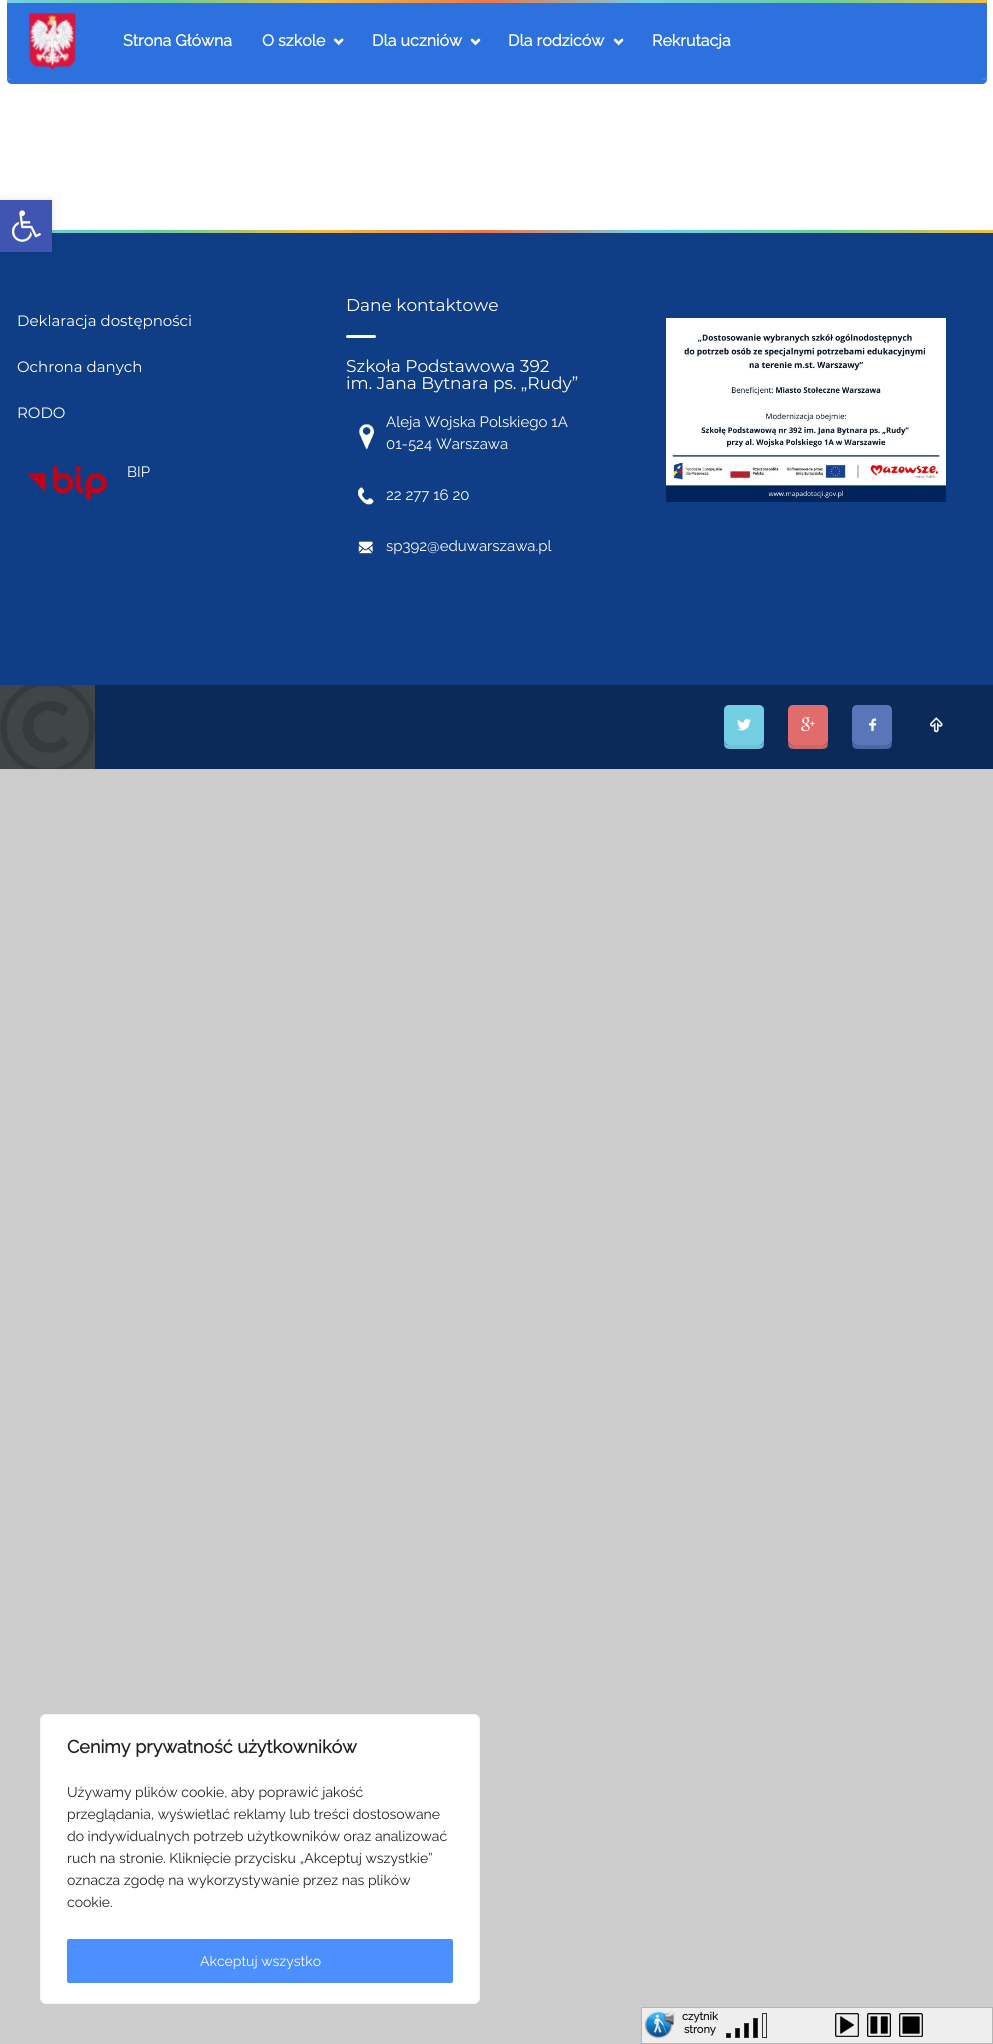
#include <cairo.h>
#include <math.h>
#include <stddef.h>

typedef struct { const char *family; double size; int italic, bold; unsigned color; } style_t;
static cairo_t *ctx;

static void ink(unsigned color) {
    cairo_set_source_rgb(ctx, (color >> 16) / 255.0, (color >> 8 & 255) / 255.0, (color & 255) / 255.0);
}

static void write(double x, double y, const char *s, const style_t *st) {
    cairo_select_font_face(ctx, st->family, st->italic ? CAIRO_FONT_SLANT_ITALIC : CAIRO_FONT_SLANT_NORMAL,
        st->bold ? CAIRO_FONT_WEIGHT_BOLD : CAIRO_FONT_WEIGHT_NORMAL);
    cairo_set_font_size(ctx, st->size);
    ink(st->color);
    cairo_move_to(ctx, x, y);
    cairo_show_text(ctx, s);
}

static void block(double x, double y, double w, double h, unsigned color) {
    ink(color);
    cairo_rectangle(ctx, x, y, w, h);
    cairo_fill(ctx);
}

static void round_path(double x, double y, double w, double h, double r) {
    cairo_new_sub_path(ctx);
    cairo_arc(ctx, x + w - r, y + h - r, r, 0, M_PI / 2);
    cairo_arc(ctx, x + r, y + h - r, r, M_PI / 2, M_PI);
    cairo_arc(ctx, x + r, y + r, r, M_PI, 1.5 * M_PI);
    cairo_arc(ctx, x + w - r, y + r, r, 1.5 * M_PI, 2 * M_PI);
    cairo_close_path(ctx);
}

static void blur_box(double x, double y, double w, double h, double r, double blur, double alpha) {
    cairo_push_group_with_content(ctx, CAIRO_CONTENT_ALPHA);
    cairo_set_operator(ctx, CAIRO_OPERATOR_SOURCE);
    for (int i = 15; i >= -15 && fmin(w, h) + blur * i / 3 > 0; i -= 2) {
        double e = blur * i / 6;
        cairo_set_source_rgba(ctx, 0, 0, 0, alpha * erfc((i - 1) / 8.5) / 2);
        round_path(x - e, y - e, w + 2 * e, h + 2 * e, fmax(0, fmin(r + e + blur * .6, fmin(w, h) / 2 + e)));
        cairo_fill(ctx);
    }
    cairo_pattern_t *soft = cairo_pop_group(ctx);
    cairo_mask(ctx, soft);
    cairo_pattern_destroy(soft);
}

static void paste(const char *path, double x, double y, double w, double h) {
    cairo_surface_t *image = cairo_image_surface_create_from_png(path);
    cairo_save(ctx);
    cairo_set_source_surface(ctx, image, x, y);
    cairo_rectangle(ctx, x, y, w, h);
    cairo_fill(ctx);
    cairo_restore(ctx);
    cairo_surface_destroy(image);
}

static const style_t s1 = {"Raleway", 16, 0, 1, 0xffffff};
static const style_t s2 = {"Montserrat Thin", 15, 0, 0, 0xffffff};
static const style_t s3 = {"Raleway Thin", 15, 0, 0, 0xffffff};
static const style_t s4 = {"Montserrat Thin", 17, 0, 0, 0xffffff};
static const style_t s5 = {"Raleway", 18, 0, 1, 0x212121};
static const style_t s6 = {"Raleway Thin", 14, 0, 0, 0x212121};
static const style_t s7 = {"Raleway Thin", 14, 0, 0, 0xffffff};
static const style_t s8 = {"Raleway", 11, 0, 1, 0x111111};

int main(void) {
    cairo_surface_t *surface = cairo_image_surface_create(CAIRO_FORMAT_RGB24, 993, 2044);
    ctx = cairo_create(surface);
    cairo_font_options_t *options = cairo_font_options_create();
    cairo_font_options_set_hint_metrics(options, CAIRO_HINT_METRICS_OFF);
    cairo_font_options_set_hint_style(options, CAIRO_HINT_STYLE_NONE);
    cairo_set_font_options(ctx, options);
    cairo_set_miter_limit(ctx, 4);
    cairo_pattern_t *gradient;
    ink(0xcccccc);
    cairo_paint(ctx);
    block(0, 0, 993, 230, 0xffffff);
    gradient = cairo_pattern_create_linear(7, 1.5, 987, 1.5);
    cairo_pattern_add_color_stop_rgba(gradient, 0, 0.455, 0.808, 0.894, 1);
    cairo_pattern_add_color_stop_rgba(gradient, 0.16, 0.4, 0.808, 0.612, 1);
    cairo_pattern_add_color_stop_rgba(gradient, 0.32, 0.929, 0.749, 0.278, 1);
    cairo_pattern_add_color_stop_rgba(gradient, 0.49, 0.925, 0.467, 0.294, 1);
    cairo_pattern_add_color_stop_rgba(gradient, 0.65, 0.455, 0.808, 0.894, 1);
    cairo_pattern_add_color_stop_rgba(gradient, 0.83, 0.4, 0.808, 0.612, 1);
    cairo_pattern_add_color_stop_rgba(gradient, 1, 0.929, 0.749, 0.278, 1);
    cairo_set_source(ctx, gradient);
    cairo_pattern_destroy(gradient);
    cairo_rectangle(ctx, 7, 0, 980, 3);
    cairo_fill(ctx);
    ink(0x2d71de);
    cairo_new_path(ctx);
    cairo_move_to(ctx, 7, 75);
    cairo_line_to(ctx, 7, 79);
    cairo_curve_to(ctx, 7, 82, 9, 84, 12, 84);
    cairo_line_to(ctx, 982, 84);
    cairo_curve_to(ctx, 985, 84, 987, 82, 987, 79);
    cairo_line_to(ctx, 987, 75);
    cairo_curve_to(ctx, 987, 78, 985, 80, 982, 80);
    cairo_line_to(ctx, 12, 80);
    cairo_curve_to(ctx, 9, 80, 7, 78, 7, 75);
    cairo_close_path(ctx);
    cairo_fill(ctx);
    cairo_new_path(ctx);
    cairo_move_to(ctx, 7, 3);
    cairo_line_to(ctx, 987, 3);
    cairo_line_to(ctx, 987, 75);
    cairo_curve_to(ctx, 987, 78, 985, 80, 982, 80);
    cairo_line_to(ctx, 12, 80);
    cairo_curve_to(ctx, 9, 80, 7, 78, 7, 75);
    cairo_close_path(ctx);
    cairo_fill(ctx);
    paste("pic1.png", 28, 13, 48, 58);
    write(123, 46, "Strona Główna", &s1);
    write(262, 46, "O szkole", &s1);
    paste("pic2.png", 334, 38, 10, 8);
    write(372, 46, "Dla uczniów", &s1);
    paste("pic3.png", 470, 38, 11, 8);
    write(508, 46, "Dla rodziców", &s1);
    paste("pic4.png", 613, 38, 11, 8);
    write(652, 46, "Rekrutacja", &s1);
    gradient = cairo_pattern_create_linear(0, 232, 993, 231);
    cairo_pattern_add_color_stop_rgba(gradient, 0, 0.455, 0.808, 0.894, 1);
    cairo_pattern_add_color_stop_rgba(gradient, 0.16, 0.4, 0.808, 0.612, 1);
    cairo_pattern_add_color_stop_rgba(gradient, 0.32, 0.929, 0.749, 0.278, 1);
    cairo_pattern_add_color_stop_rgba(gradient, 0.49, 0.925, 0.467, 0.294, 1);
    cairo_pattern_add_color_stop_rgba(gradient, 0.65, 0.455, 0.808, 0.894, 1);
    cairo_pattern_add_color_stop_rgba(gradient, 0.83, 0.4, 0.808, 0.612, 1);
    cairo_pattern_add_color_stop_rgba(gradient, 1, 0.929, 0.749, 0.278, 1);
    cairo_set_source(ctx, gradient);
    cairo_pattern_destroy(gradient);
    cairo_rectangle(ctx, 52, 230, 941, 3);
    cairo_fill(ctx);
    block(0, 233, 993, 452, 0x0f3e86);
    write(17, 326, "Deklaracja dostępności", &s2);
    write(17, 372, "Ochrona danych", &s2);
    write(17, 418, "RODO", &s2);
    paste("pic5.png", 27, 466, 80, 34);
    write(127, 477, "BIP", &s3);
    write(346, 311, "Dane kontaktowe", &s4);
    round_path(346, 335, 30, 3, 1.5);
    cairo_fill(ctx);
    write(346, 372, "Szkoła Podstawowa 392", &s4);
    write(346, 389, "im. Jana Bytnara ps. „Rudy”", &s4);
    paste("pic6.png", 358, 424, 17, 26);
    write(386, 427, "Aleja Wojska Polskiego 1A", &s3);
    write(386, 449, "01-524 Warszawa", &s3);
    paste("pic7.png", 358, 487, 16, 18);
    write(386, 500, "22 277 16 20", &s3);
    paste("pic8.png", 358, 541, 15, 13);
    write(386, 551, "sp392@eduwarszawa.pl", &s3);
    paste("pic9.png", 666, 318, 280, 184);
    block(95, 685, 898, 84, 0x0b2a59);
    paste("pic10.png", 0, 685, 95, 84);
    ink(0x6fc4d9);
    cairo_new_path(ctx);
    cairo_move_to(ctx, 724, 740);
    cairo_curve_to(ctx, 724, 749, 725, 749, 734, 749);
    cairo_line_to(ctx, 754, 749);
    cairo_curve_to(ctx, 763, 749, 764, 749, 764, 740);
    cairo_curve_to(ctx, 764, 743, 762, 745, 759, 745);
    cairo_line_to(ctx, 729, 745);
    cairo_curve_to(ctx, 726, 745, 724, 743, 724, 740);
    cairo_close_path(ctx);
    cairo_fill(ctx);
    ink(0x74cee4);
    round_path(724, 705, 40, 40, 5);
    cairo_fill(ctx);
    paste("pic11.png", 737, 719, 14, 12);
    ink(0xc86969);
    cairo_new_path(ctx);
    cairo_move_to(ctx, 788, 740);
    cairo_curve_to(ctx, 788, 749, 789, 749, 798, 749);
    cairo_line_to(ctx, 818, 749);
    cairo_curve_to(ctx, 827, 749, 828, 749, 828, 740);
    cairo_curve_to(ctx, 828, 743, 826, 745, 823, 745);
    cairo_line_to(ctx, 793, 745);
    cairo_curve_to(ctx, 790, 745, 788, 743, 788, 740);
    cairo_close_path(ctx);
    cairo_fill(ctx);
    ink(0xe16c6c);
    round_path(788, 705, 40, 40, 5);
    cairo_fill(ctx);
    paste("pic12.png", 801, 717, 14, 15);
    ink(0x4c67a1);
    cairo_new_path(ctx);
    cairo_move_to(ctx, 852, 740);
    cairo_curve_to(ctx, 852, 749, 853, 749, 862, 749);
    cairo_line_to(ctx, 882, 749);
    cairo_curve_to(ctx, 891, 749, 892, 749, 892, 740);
    cairo_curve_to(ctx, 892, 743, 890, 745, 887, 745);
    cairo_line_to(ctx, 857, 745);
    cairo_curve_to(ctx, 854, 745, 852, 743, 852, 740);
    cairo_close_path(ctx);
    cairo_fill(ctx);
    ink(0x5977b8);
    round_path(852, 705, 40, 40, 5);
    cairo_fill(ctx);
    paste("pic13.png", 869, 718, 8, 13);
    paste("pic14.png", 930, 717, 13, 16);
    ink(0x000000);
    blur_box(0, 200, 52, 52, 0, 5, 0.1);
    block(0, 200, 52, 52, 0x4054b2);
    paste("pic15.png", 11, 210, 30, 32);
    ink(0xffffff);
    round_path(40.5, 1714.5, 439, 289, 5.5);
    cairo_fill_preserve(ctx);
    ink(0xf4f4f4);
    cairo_set_line_width(ctx, 1);
    cairo_stroke(ctx);
    write(67, 1753, "Cenimy prywatność użytkowników", &s5);
    write(67, 1797, "Używamy plików cookie, aby poprawić jakość", &s6);
    write(67, 1819, "przeglądania, wyświetlać reklamy lub treści dostosowane", &s6);
    write(67, 1841, "do indywidualnych potrzeb użytkowników oraz analizować", &s6);
    write(67, 1863, "ruch na stronie. Kliknięcie przycisku „Akceptuj wszystkie”", &s6);
    write(67, 1885, "oznacza zgodę na wykorzystywanie przez nas plików", &s6);
    write(67, 1907, "cookie.", &s6);
    ink(0x4c90ff);
    round_path(68, 1940, 384, 42, 1);
    cairo_fill_preserve(ctx);
    cairo_set_line_width(ctx, 2);
    cairo_stroke(ctx);
    write(200, 1966, "Akceptuj wszystko", &s7);
    ink(0xeeeeee);
    cairo_rectangle(ctx, 641.5, 2007.5, 351, 36);
    cairo_fill_preserve(ctx);
    ink(0xb5b5b5);
    cairo_set_line_width(ctx, 1);
    cairo_stroke(ctx);
    paste("pic16.png", 644, 2010, 31, 29);
    write(682, 2020, "czytnik", &s8);
    write(684, 2033, "strony", &s8);
    ink(0x000000);
    cairo_rectangle(ctx, 726.5, 2033.5, 4, 4);
    cairo_fill_preserve(ctx);
    ink(0x333333);
    cairo_stroke(ctx);
    ink(0x000000);
    cairo_rectangle(ctx, 735.5, 2028.5, 4, 9);
    cairo_fill_preserve(ctx);
    ink(0x333333);
    cairo_stroke(ctx);
    ink(0x000000);
    cairo_rectangle(ctx, 744.5, 2023.5, 4, 14);
    cairo_fill_preserve(ctx);
    ink(0x333333);
    cairo_stroke(ctx);
    ink(0x000000);
    cairo_rectangle(ctx, 753.5, 2018.5, 4, 19);
    cairo_fill_preserve(ctx);
    ink(0x333333);
    cairo_stroke(ctx);
    cairo_rectangle(ctx, 762.5, 2013.5, 4, 24);
    cairo_stroke(ctx);
    paste("pic17.png", 835, 2013, 24, 24);
    paste("pic18.png", 867, 2013, 24, 24);
    paste("pic19.png", 899, 2013, 24, 24);
    cairo_surface_write_to_png(surface, "screenshot.png");
    cairo_font_options_destroy(options);
    cairo_destroy(ctx);
    cairo_surface_destroy(surface);
    return 0;
}
